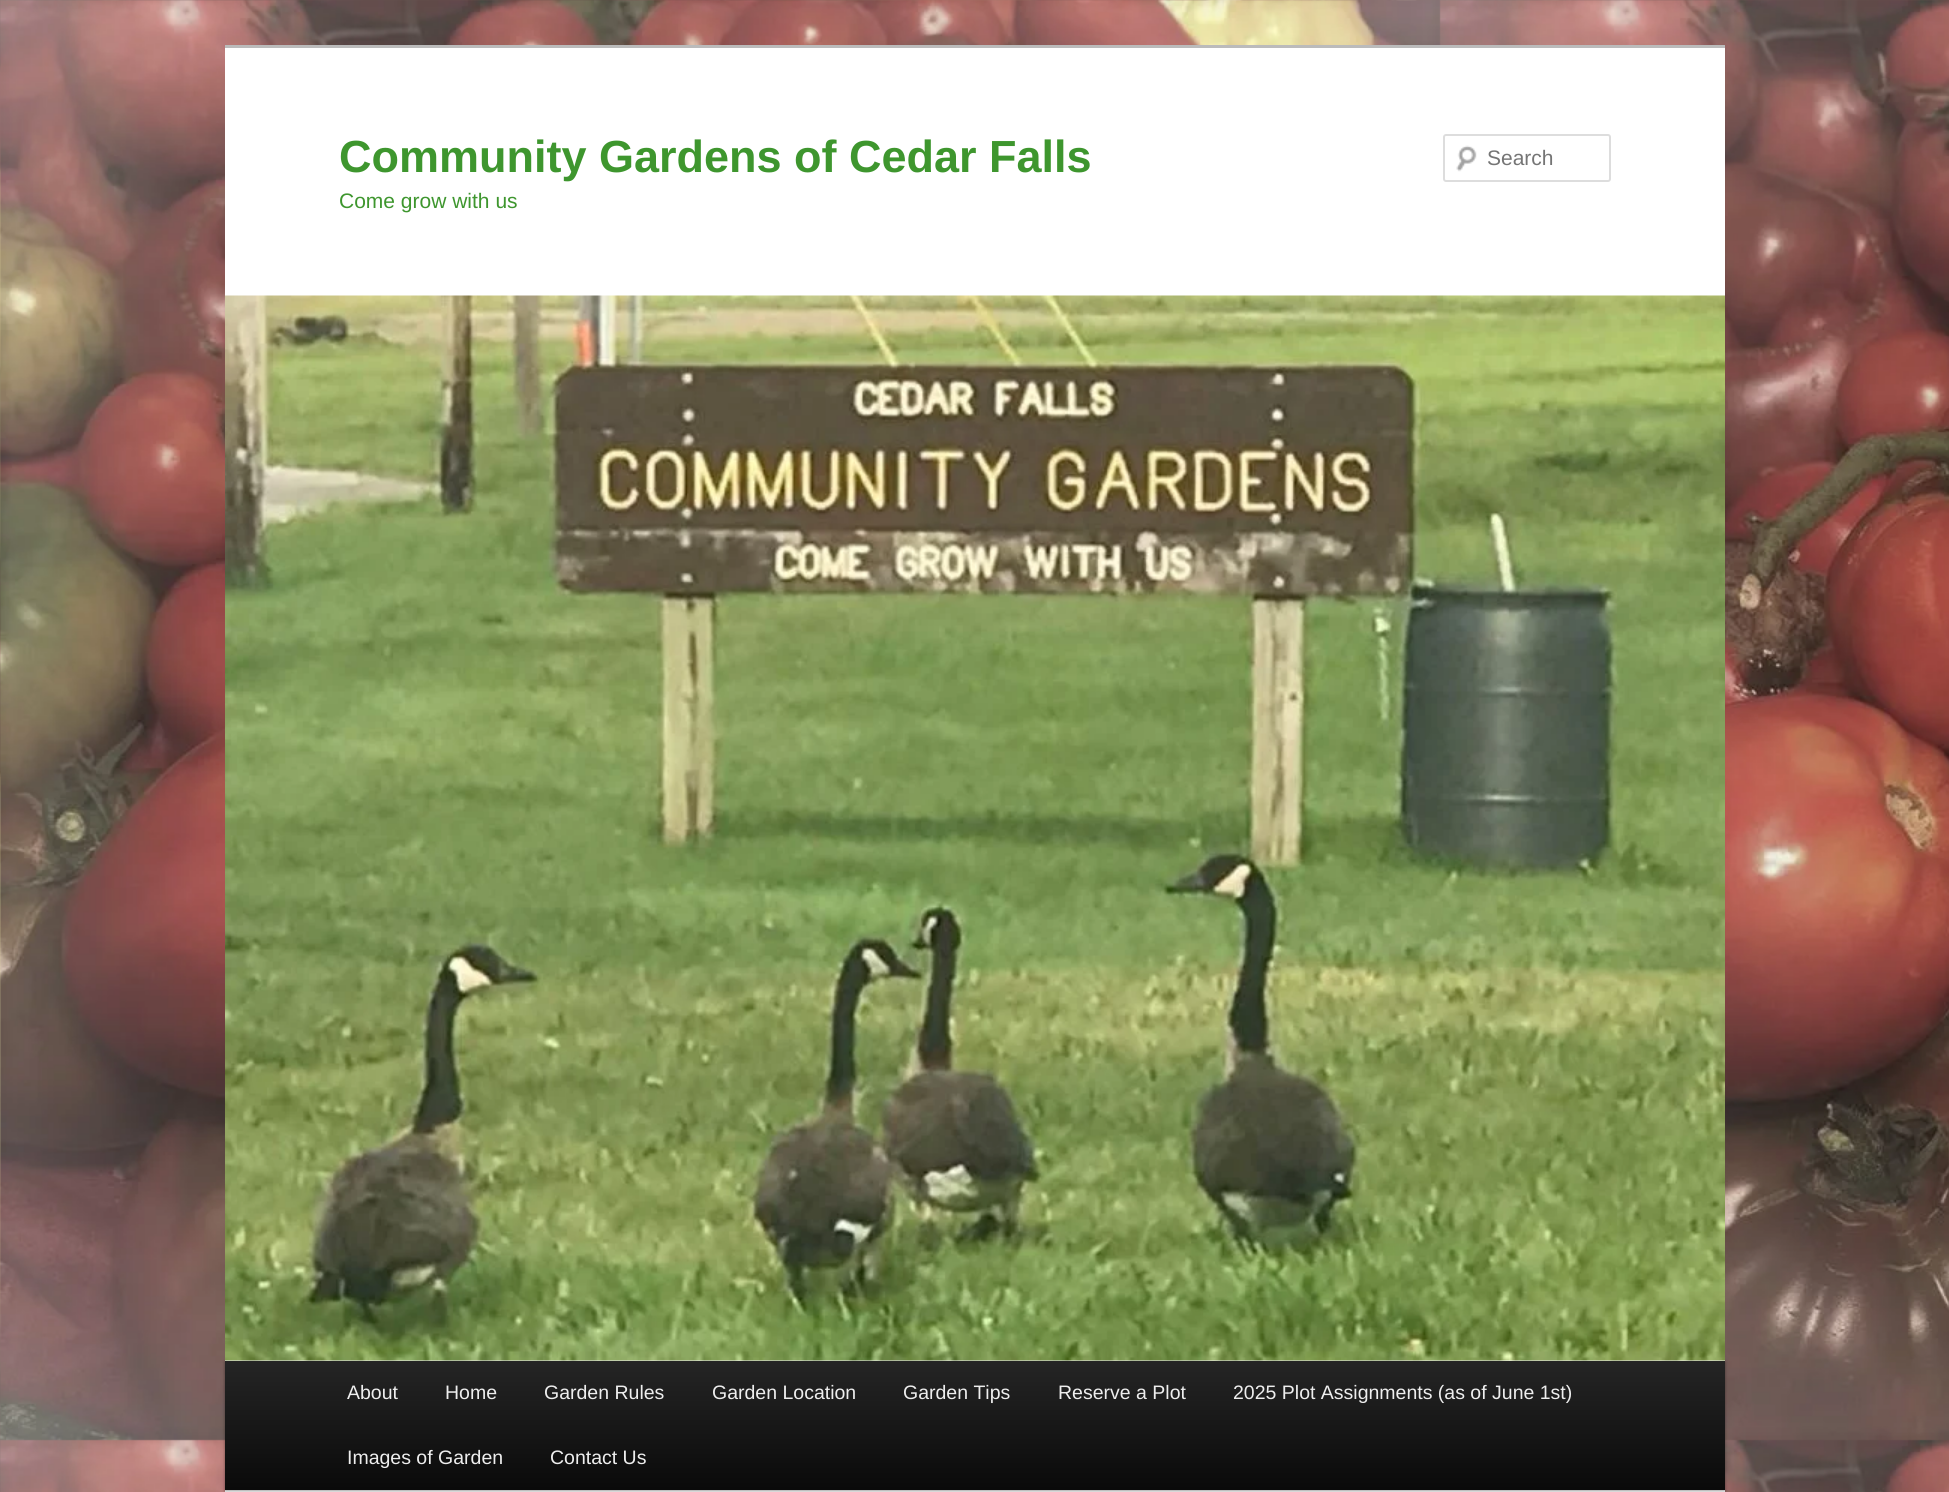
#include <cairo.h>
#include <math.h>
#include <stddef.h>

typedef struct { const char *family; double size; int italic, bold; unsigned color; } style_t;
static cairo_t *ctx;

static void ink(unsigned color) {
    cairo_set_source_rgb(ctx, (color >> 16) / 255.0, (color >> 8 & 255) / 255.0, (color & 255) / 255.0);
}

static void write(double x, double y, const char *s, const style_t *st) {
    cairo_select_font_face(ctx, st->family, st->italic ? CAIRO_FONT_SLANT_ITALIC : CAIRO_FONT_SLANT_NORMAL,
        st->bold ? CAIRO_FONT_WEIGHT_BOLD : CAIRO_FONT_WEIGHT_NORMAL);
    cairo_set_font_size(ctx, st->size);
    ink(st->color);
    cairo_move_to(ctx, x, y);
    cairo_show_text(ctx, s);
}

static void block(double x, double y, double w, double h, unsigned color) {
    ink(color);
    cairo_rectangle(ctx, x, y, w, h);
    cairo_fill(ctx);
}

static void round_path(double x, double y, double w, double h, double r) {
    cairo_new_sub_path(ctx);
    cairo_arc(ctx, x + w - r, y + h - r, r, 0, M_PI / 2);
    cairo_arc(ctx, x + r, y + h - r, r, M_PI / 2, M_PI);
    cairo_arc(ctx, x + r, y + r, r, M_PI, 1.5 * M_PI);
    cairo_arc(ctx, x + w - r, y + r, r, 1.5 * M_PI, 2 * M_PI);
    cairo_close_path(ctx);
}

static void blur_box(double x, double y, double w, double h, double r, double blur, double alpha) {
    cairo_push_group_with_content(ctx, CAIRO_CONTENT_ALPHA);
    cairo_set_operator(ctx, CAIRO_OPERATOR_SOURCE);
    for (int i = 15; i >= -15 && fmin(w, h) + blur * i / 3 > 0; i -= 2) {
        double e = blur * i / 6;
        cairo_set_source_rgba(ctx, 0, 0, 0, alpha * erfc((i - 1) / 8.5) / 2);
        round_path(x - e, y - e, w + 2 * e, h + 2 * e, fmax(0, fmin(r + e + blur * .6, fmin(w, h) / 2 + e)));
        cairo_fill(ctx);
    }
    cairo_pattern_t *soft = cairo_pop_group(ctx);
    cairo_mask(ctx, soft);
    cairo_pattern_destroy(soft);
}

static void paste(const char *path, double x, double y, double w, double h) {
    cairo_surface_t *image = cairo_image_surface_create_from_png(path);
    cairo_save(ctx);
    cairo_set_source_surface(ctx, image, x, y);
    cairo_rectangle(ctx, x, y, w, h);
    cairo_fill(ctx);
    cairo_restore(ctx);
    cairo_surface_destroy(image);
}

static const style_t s1 = {"Liberation Sans", 45, 0, 1, 0x3e962e};
static const style_t s2 = {"Liberation Sans", 21, 0, 0, 0x3e962e};
static const style_t s3 = {"Liberation Sans", 21, 0, 0, 0x757575};
static const style_t s4 = {"Liberation Sans", 19.5, 0, 0, 0xeeeeee};

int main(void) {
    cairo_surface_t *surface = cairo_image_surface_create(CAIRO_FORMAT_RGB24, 1949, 1492);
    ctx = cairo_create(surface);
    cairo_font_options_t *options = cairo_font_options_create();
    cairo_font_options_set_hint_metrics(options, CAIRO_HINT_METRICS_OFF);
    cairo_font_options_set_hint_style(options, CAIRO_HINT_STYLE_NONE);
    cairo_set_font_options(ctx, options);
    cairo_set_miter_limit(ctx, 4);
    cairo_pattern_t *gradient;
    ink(0xffffff);
    cairo_paint(ctx);
    paste("pic1.png", 0, 0, 1949, 1492);
    block(225, 48, 1500, 1444, 0xffffff);
    block(225, 45, 1500, 3, 0xbbbbbb);
    write(339, 172, "Community Gardens of Cedar Falls", &s1);
    write(339, 208, "Come grow with us", &s2);
    paste("pic2.png", 1456, 145, 21, 27);
    round_path(1444, 135, 166, 46, 2);
    ink(0xdddddd);
    cairo_stroke(ctx);
    write(1487, 165, "Search", &s3);
    ink(0x000000);
    blur_box(225, 1362, 1500, 129, 0, 1.5, 0.4);
    paste("pic3.png", 225, 295, 1500, 1066);
    gradient = cairo_pattern_create_linear(975, 1360, 975, 1490);
    cairo_pattern_add_color_stop_rgba(gradient, 0, 0.145, 0.145, 0.145, 1);
    cairo_pattern_add_color_stop_rgba(gradient, 1, 0.039, 0.039, 0.039, 1);
    cairo_set_source(ctx, gradient);
    cairo_pattern_destroy(gradient);
    cairo_rectangle(ctx, 225, 1361, 1500, 129);
    cairo_fill(ctx);
    write(347, 1399, "About", &s4);
    write(445, 1399, "Home", &s4);
    write(544, 1399, "Garden Rules", &s4);
    write(712, 1399, "Garden Location", &s4);
    write(903, 1399, "Garden Tips", &s4);
    write(1058, 1399, "Reserve a Plot", &s4);
    write(1233, 1399, "2025 Plot Assignments (as of June 1st)", &s4);
    write(347, 1464, "Images of Garden", &s4);
    write(550, 1464, "Contact Us", &s4);
    cairo_surface_write_to_png(surface, "screenshot.png");
    cairo_font_options_destroy(options);
    cairo_destroy(ctx);
    cairo_surface_destroy(surface);
    return 0;
}
